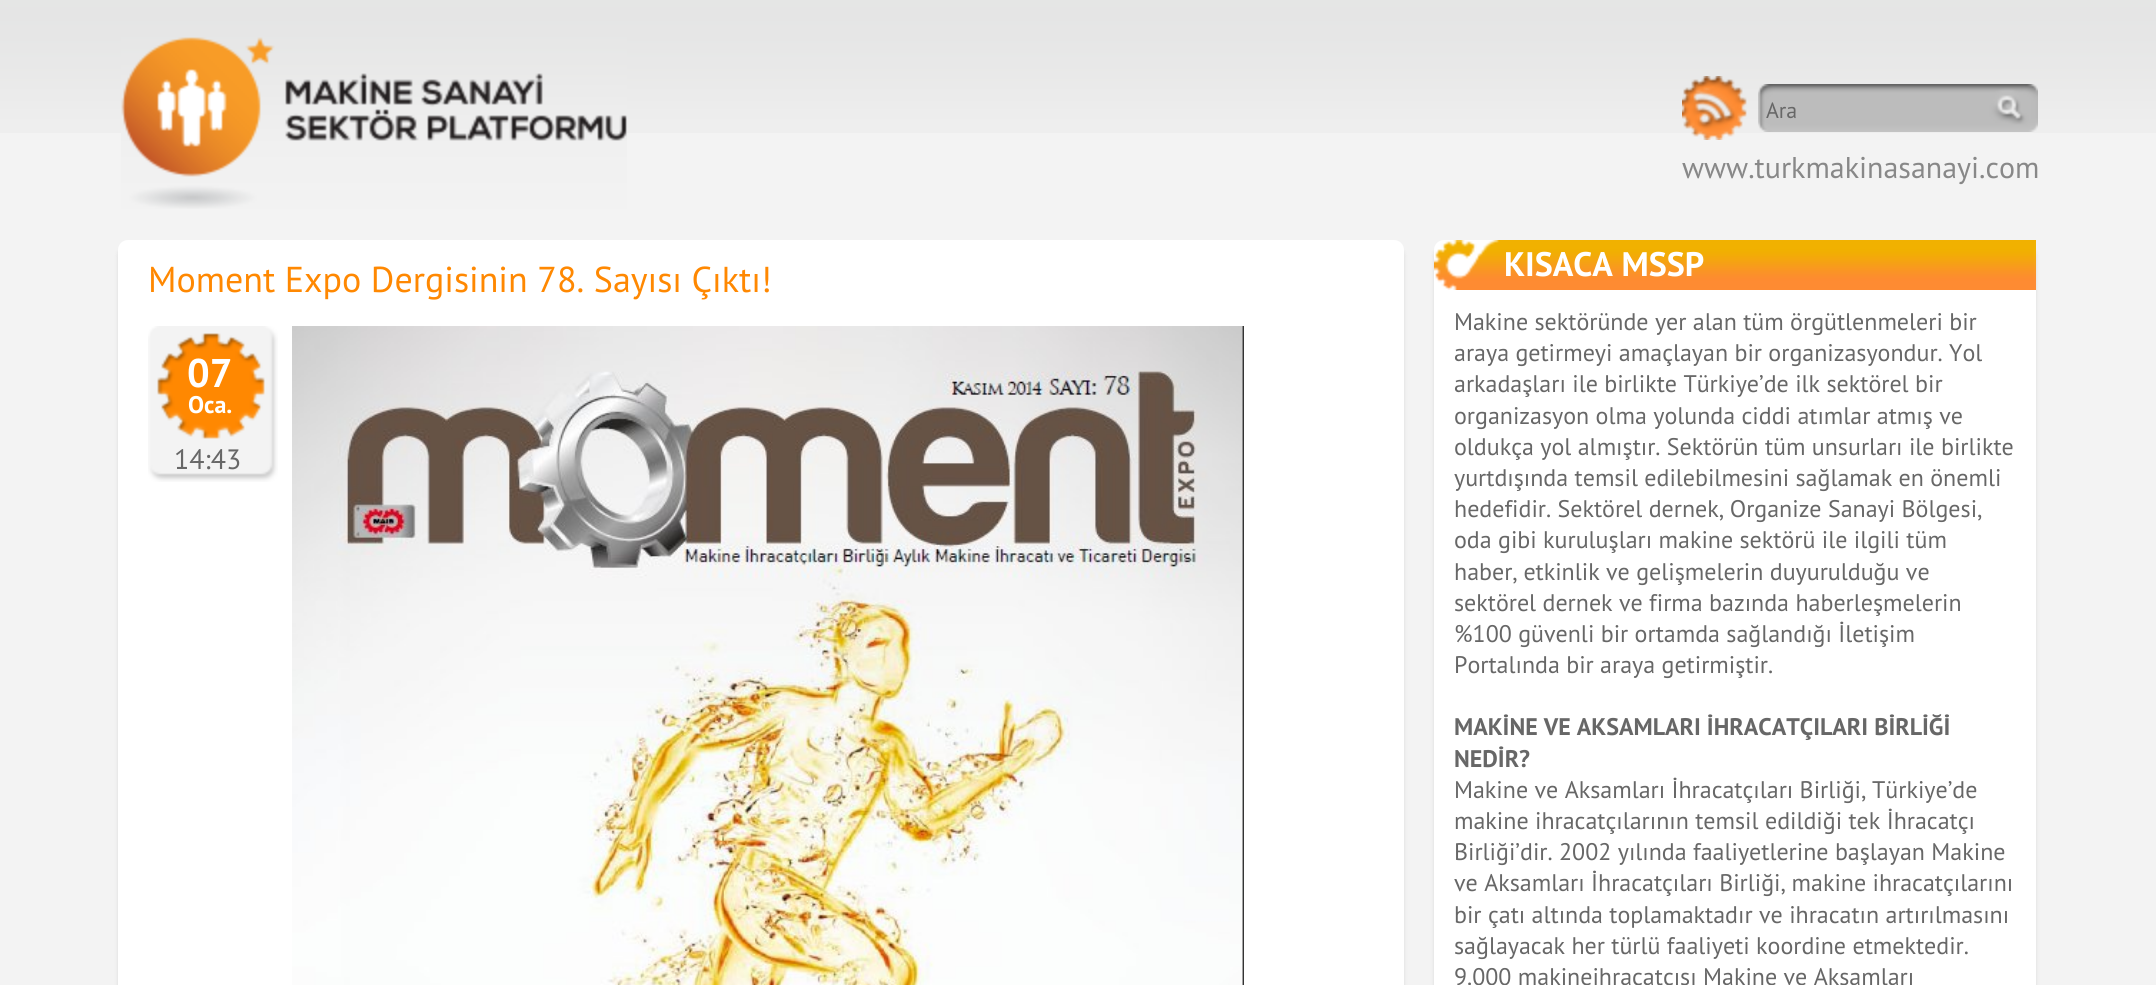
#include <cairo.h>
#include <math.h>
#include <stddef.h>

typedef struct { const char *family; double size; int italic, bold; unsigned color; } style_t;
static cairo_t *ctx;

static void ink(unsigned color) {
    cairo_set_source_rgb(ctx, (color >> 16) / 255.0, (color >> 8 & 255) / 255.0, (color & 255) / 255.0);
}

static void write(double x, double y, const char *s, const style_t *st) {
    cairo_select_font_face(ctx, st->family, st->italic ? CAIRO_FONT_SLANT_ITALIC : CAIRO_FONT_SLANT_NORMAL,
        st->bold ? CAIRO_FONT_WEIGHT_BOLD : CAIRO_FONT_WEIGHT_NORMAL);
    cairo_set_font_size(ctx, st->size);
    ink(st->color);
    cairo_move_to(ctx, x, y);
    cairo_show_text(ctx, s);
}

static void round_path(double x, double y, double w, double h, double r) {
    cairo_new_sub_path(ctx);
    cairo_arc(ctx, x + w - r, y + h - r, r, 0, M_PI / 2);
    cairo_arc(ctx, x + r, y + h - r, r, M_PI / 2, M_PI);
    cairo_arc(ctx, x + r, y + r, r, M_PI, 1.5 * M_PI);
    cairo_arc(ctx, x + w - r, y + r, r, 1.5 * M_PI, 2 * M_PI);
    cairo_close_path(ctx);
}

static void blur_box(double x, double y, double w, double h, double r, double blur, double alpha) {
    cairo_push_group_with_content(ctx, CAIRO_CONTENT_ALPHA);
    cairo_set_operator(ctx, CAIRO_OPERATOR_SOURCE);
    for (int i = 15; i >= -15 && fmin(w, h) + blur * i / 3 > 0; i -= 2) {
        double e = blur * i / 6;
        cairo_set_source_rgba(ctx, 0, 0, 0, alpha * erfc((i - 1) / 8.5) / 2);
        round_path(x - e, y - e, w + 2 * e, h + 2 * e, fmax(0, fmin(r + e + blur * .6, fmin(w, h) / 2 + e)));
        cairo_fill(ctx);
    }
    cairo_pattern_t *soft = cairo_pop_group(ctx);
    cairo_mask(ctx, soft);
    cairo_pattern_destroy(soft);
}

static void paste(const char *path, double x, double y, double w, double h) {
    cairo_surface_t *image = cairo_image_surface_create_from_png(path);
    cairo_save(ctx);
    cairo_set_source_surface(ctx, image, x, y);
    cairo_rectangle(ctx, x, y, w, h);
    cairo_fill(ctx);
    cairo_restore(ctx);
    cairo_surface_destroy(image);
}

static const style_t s1 = {"PT Sans", 22, 0, 0, 0x676767};
static const style_t s2 = {"PT Sans", 30, 0, 0, 0x888888};
static const style_t s3 = {"PT Sans", 36, 0, 0, 0xff8801};
static const style_t s4 = {"PT Sans", 40, 0, 1, 0xffffff};
static const style_t s5 = {"PT Sans", 24, 0, 1, 0xffffff};
static const style_t s6 = {"PT Sans", 28, 0, 0, 0x676767};
static const style_t s7 = {"PT Sans", 34, 0, 1, 0xffffff};
static const style_t s8 = {"PT Sans", 24, 0, 0, 0x676767};
static const style_t s9 = {"PT Sans", 24, 0, 1, 0x676767};

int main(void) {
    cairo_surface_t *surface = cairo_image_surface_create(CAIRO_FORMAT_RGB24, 2156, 985);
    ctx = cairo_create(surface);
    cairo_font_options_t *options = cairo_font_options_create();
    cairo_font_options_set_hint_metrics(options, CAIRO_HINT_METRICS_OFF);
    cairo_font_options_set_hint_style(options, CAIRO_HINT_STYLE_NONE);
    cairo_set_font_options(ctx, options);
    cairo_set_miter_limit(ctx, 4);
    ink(0xf3f3f3);
    cairo_paint(ctx);
    paste("pic1.png", 0, 0, 2156, 133);
    paste("pic2.png", 121, 37, 506, 172);
    paste("pic3.png", 1682, 76, 65, 64);
    paste("pic4.png", 1758, 84, 280, 48);
    write(1766, 118, "Ara", &s1);
    write(1682, 178, "www.turkmakinasanayi.com", &s2);
    ink(0x000000);
    blur_box(118, 246, 1286, 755, 10, 2, 0.1);
    ink(0xffffff);
    round_path(118, 240, 1286, 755, 10);
    cairo_fill(ctx);
    write(148, 292, "Moment Expo Dergisinin 78. Sayısı Çıktı!", &s3);
    paste("pic5.png", 148, 326, 130, 156);
    write(187, 387, "07", &s4);
    write(188, 413, "Oca.", &s5);
    write(174, 469, "14:43", &s6);
    paste("pic6.png", 292, 326, 952, 659);
    ink(0x000000);
    blur_box(1434, 246, 602, 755, 10, 2, 0.1);
    ink(0xffffff);
    round_path(1434, 240, 602, 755, 10);
    cairo_fill(ctx);
    paste("pic7.png", 1434, 240, 602, 50);
    write(1504, 276, "KISACA MSSP", &s7);
    write(1454, 330, "Makine sektöründe yer alan tüm örgütlenmeleri bir", &s8);
    write(1454, 361, "araya getirmeyi amaçlayan bir organizasyondur. Yol", &s8);
    write(1454, 392, "arkadaşları ile birlikte Türkiye’de ilk sektörel bir", &s8);
    write(1454, 424, "organizasyon olma yolunda ciddi atımlar atmış ve", &s8);
    write(1454, 455, "oldukça yol almıştır. Sektörün tüm unsurları ile birlikte", &s8);
    write(1454, 486, "yurtdışında temsil edilebilmesini sağlamak en önemli", &s8);
    write(1454, 517, "hedefidir. Sektörel dernek, Organize Sanayi Bölgesi,", &s8);
    write(1454, 548, "oda gibi kuruluşları makine sektörü ile ilgili tüm", &s8);
    write(1454, 580, "haber, etkinlik ve gelişmelerin duyurulduğu ve", &s8);
    write(1454, 611, "sektörel dernek ve firma bazında haberleşmelerin", &s8);
    write(1454, 642, "%100 güvenli bir ortamda sağlandığı İletişim", &s8);
    write(1454, 673, "Portalında bir araya getirmiştir.", &s8);
    write(1454, 735, "MAKİNE VE AKSAMLARI İHRACATÇILARI BİRLİĞİ", &s9);
    write(1454, 767, "NEDİR?", &s9);
    write(1454, 798, "Makine ve Aksamları İhracatçıları Birliği, Türkiye’de", &s8);
    write(1454, 829, "makine ihracatçılarının temsil edildiği tek İhracatçı", &s8);
    write(1454, 860, "Birliği’dir. 2002 yılında faaliyetlerine başlayan Makine", &s8);
    write(1454, 891, "ve Aksamları İhracatçıları Birliği, makine ihracatçılarını", &s8);
    write(1454, 923, "bir çatı altında toplamaktadır ve ihracatın artırılmasını", &s8);
    write(1454, 954, "sağlayacak her türlü faaliyeti koordine etmektedir.", &s8);
    write(1454, 985, "9.000 makineihracatçısı Makine ve Aksamları", &s8);
    cairo_surface_write_to_png(surface, "screenshot.png");
    cairo_font_options_destroy(options);
    cairo_destroy(ctx);
    cairo_surface_destroy(surface);
    return 0;
}
